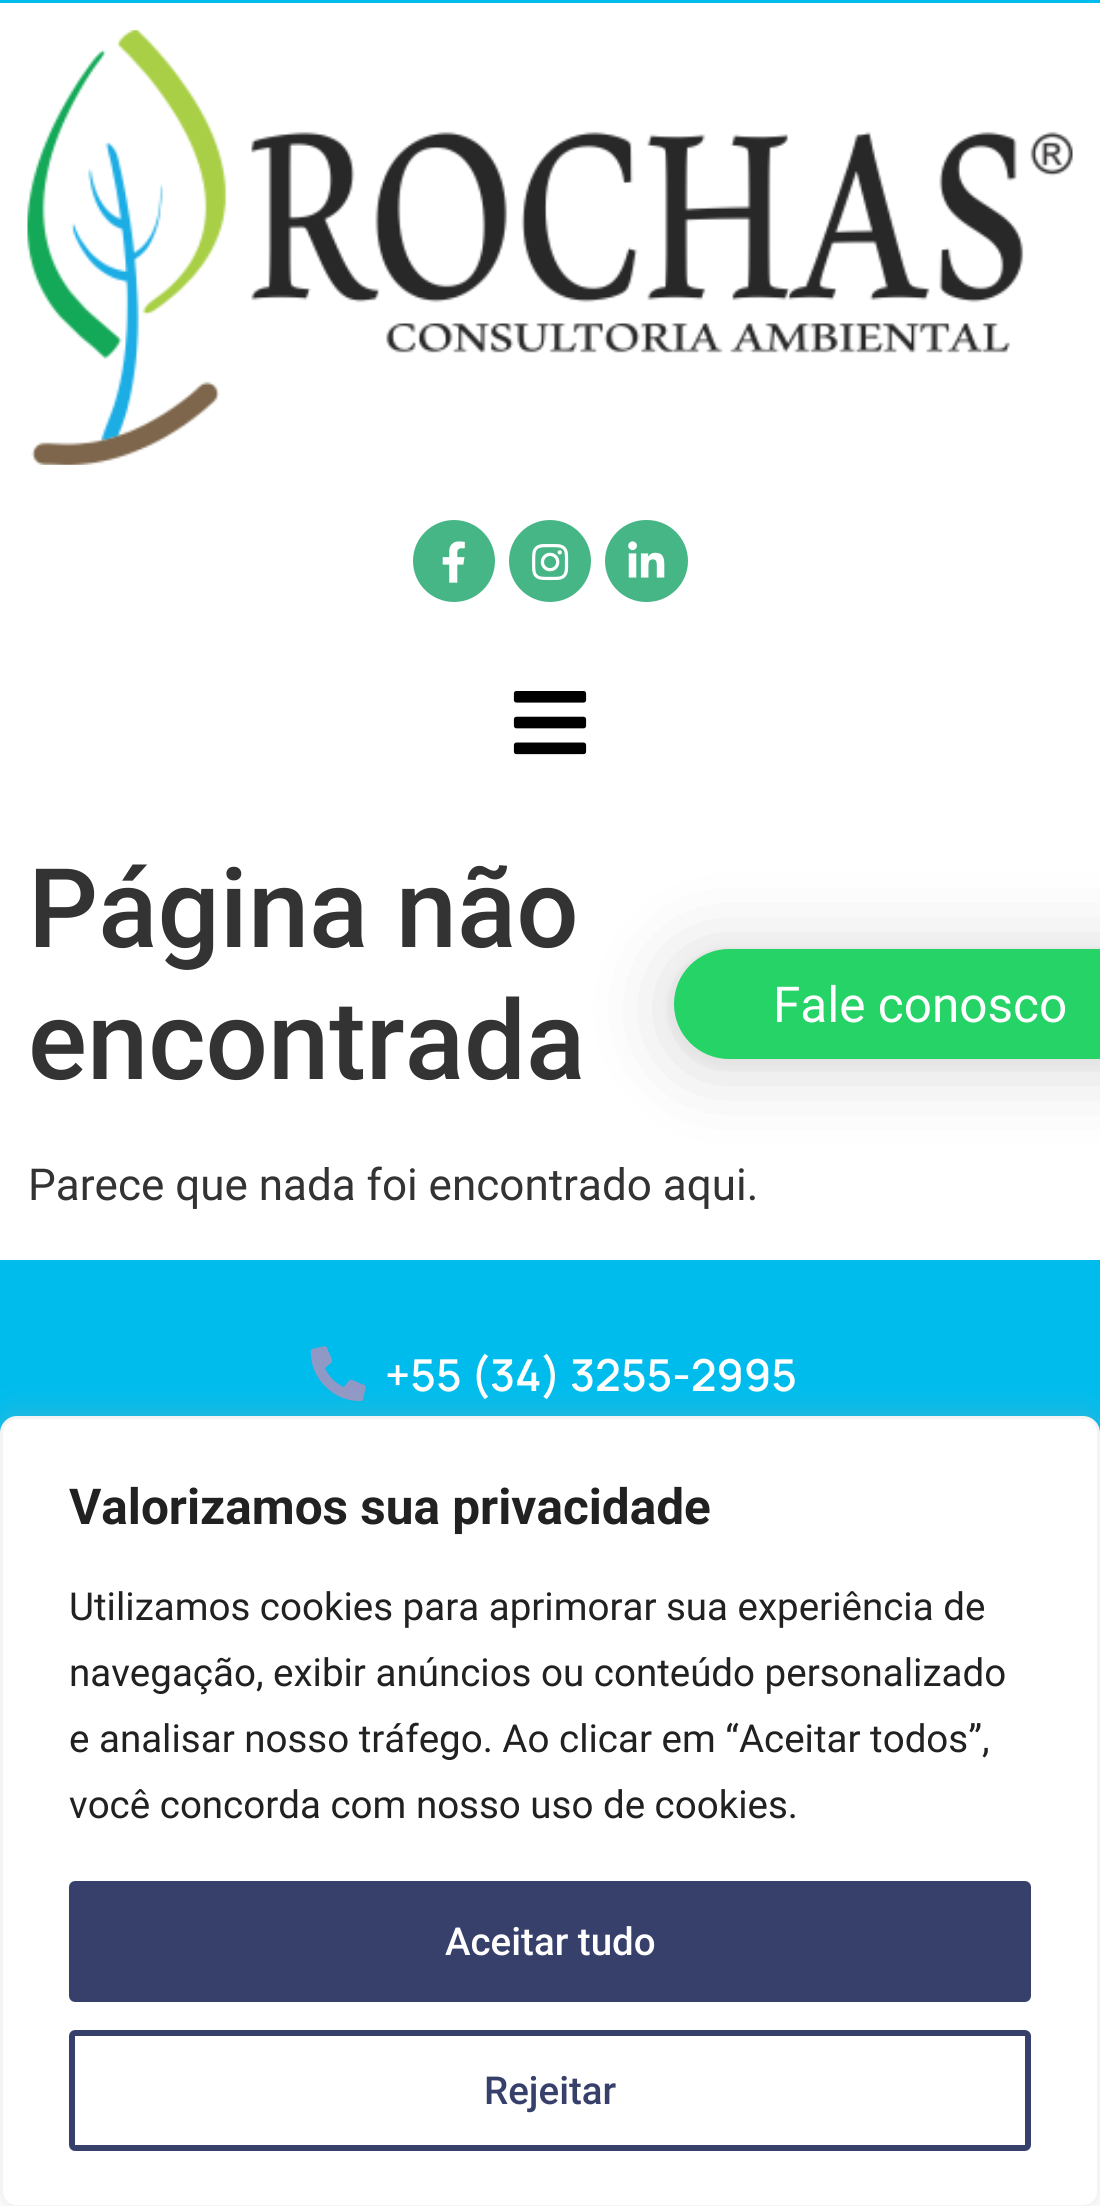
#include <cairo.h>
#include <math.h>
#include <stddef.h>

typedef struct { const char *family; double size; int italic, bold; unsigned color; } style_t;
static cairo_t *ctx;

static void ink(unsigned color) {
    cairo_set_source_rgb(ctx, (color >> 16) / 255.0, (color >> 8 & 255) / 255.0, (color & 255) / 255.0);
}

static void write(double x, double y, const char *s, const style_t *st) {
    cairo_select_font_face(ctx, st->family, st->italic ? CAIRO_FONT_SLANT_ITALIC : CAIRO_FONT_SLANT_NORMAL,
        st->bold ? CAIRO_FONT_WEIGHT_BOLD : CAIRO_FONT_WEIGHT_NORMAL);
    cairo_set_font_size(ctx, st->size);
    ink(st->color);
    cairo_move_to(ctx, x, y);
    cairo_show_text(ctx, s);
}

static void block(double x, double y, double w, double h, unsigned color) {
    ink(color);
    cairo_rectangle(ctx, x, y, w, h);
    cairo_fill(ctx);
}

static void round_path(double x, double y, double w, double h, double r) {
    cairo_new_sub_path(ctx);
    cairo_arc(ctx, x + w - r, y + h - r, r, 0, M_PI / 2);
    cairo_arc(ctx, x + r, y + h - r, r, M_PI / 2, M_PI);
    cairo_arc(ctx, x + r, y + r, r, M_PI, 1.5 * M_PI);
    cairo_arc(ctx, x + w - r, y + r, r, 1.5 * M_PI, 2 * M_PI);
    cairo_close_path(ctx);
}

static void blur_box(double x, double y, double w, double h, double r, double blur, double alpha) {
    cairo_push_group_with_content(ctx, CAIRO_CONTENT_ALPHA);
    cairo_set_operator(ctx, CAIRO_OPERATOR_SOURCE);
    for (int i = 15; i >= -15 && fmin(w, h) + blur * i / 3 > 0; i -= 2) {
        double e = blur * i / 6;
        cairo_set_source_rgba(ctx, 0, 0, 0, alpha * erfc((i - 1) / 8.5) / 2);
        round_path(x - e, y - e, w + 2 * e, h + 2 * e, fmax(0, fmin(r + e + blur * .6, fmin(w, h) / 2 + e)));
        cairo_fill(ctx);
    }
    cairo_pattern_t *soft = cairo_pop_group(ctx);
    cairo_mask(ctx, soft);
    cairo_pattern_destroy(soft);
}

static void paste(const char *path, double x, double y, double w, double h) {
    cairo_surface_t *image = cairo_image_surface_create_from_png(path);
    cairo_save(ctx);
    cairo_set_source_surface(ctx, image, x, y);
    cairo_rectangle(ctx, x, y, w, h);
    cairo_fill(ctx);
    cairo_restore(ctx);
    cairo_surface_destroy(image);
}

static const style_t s1 = {"Roboto Medium", 110, 0, 0, 0x333333};
static const style_t s2 = {"Roboto", 44, 0, 0, 0x333333};
static const style_t s3 = {"Manrope SemiBold", 44, 0, 0, 0xffffff};
static const style_t s4 = {"Roboto", 49.5, 0, 0, 0xffffff};
static const style_t s5 = {"Roboto", 49.5, 0, 1, 0x212121};
static const style_t s6 = {"Roboto", 38.5, 0, 0, 0x212121};
static const style_t s7 = {"Roboto Medium", 38.5, 0, 0, 0xffffff};
static const style_t s8 = {"Roboto Medium", 38.5, 0, 0, 0x373f6b};

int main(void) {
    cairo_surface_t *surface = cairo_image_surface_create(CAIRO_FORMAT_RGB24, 1100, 2206);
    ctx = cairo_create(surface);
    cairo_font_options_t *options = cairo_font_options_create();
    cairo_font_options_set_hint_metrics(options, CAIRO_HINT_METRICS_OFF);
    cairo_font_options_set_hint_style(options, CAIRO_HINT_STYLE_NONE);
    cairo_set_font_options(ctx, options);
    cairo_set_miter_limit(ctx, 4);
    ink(0xffffff);
    cairo_paint(ctx);
    block(0, 0, 1100, 3, 0x00bcec);
    paste("pic1.png", 27, 30, 1046, 435);
    ink(0x47b687);
    cairo_arc(ctx, 454, 561, 41, 0, 2 * M_PI);
    cairo_fill(ctx);
    paste("pic2.png", 442, 541, 23, 42);
    cairo_arc(ctx, 550, 561, 41, 0, 2 * M_PI);
    cairo_fill(ctx);
    paste("pic3.png", 532, 544, 37, 37);
    round_path(605, 520, 83, 82, 41);
    cairo_fill(ctx);
    paste("pic4.png", 628, 541, 37, 37);
    paste("pic5.png", 513, 691, 74, 64);
    write(28, 947, "Página não", &s1);
    write(28, 1079, "encontrada", &s1);
    write(28, 1200, "Parece que nada foi encontrado aqui.", &s2);
    block(0, 1260, 1100, 173, 0x00bcec);
    paste("pic6.png", 310, 1346, 56, 56);
    write(385, 1391, "+55 (34) 3255-2995", &s3);
    ink(0x000000);
    blur_box(674, 954, 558, 110, 55, 44, 0.16);
    blur_box(674, 952, 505, 110, 55, 8, 0.06);
    ink(0x25d366);
    round_path(674, 949, 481, 110, 55);
    cairo_fill(ctx);
    write(773, 1022, "Fale conosco", &s4);
    ink(0xacabab);
    blur_box(0, 1414, 1100, 792, 17, 14, 0.3);
    ink(0xffffff);
    round_path(1.5, 1417.5, 1097, 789, 15.5);
    cairo_fill_preserve(ctx);
    ink(0xf4f4f4);
    cairo_set_line_width(ctx, 3);
    cairo_stroke(ctx);
    write(69, 1524, "Valorizamos sua privacidade", &s5);
    write(69, 1620, "Utilizamos cookies para aprimorar sua experiência de", &s6);
    write(69, 1686, "navegação, exibir anúncios ou conteúdo personalizado", &s6);
    write(69, 1752, "e analisar nosso tráfego. Ao clicar em “Aceitar todos”,", &s6);
    write(69, 1818, "você concorda com nosso uso de cookies.", &s6);
    ink(0x373f6b);
    round_path(72, 1884, 956, 115, 3);
    cairo_fill_preserve(ctx);
    cairo_set_line_width(ctx, 6);
    cairo_stroke(ctx);
    write(445, 1955, "Aceitar tudo", &s7);
    round_path(72, 2033, 956, 115, 3);
    ink(0x373f6b);
    cairo_stroke(ctx);
    write(484, 2104, "Rejeitar", &s8);
    cairo_surface_write_to_png(surface, "screenshot.png");
    cairo_font_options_destroy(options);
    cairo_destroy(ctx);
    cairo_surface_destroy(surface);
    return 0;
}
